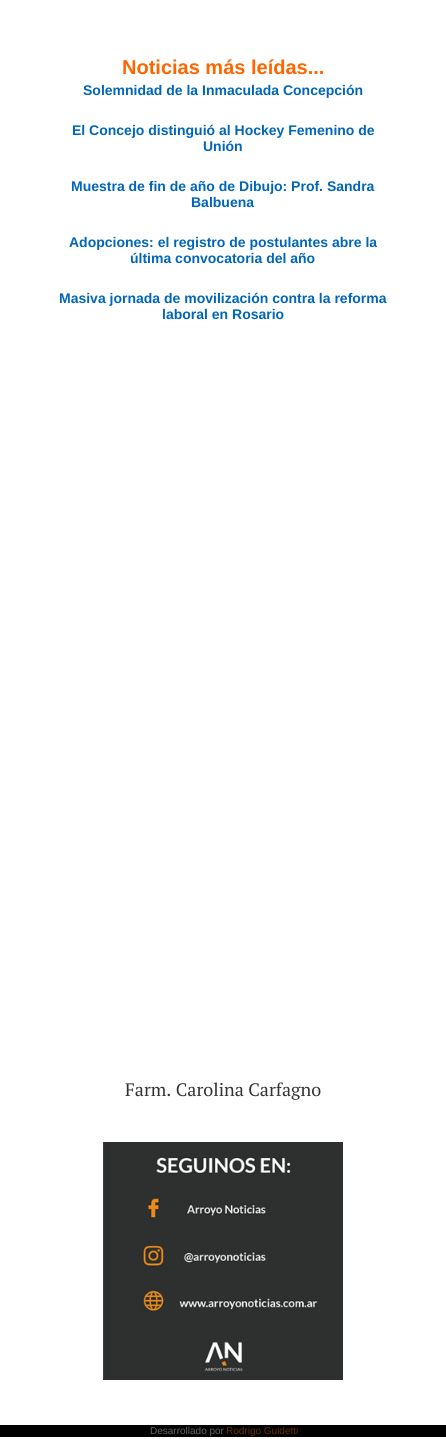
#include <cairo.h>
#include <math.h>
#include <stddef.h>

typedef struct { const char *family; double size; int italic, bold; unsigned color; } style_t;
static cairo_t *ctx;

static void ink(unsigned color) {
    cairo_set_source_rgb(ctx, (color >> 16) / 255.0, (color >> 8 & 255) / 255.0, (color & 255) / 255.0);
}

static void write(double x, double y, const char *s, const style_t *st) {
    cairo_select_font_face(ctx, st->family, st->italic ? CAIRO_FONT_SLANT_ITALIC : CAIRO_FONT_SLANT_NORMAL,
        st->bold ? CAIRO_FONT_WEIGHT_BOLD : CAIRO_FONT_WEIGHT_NORMAL);
    cairo_set_font_size(ctx, st->size);
    ink(st->color);
    cairo_move_to(ctx, x, y);
    cairo_show_text(ctx, s);
}

static void block(double x, double y, double w, double h, unsigned color) {
    ink(color);
    cairo_rectangle(ctx, x, y, w, h);
    cairo_fill(ctx);
}

static void paste(const char *path, double x, double y, double w, double h) {
    cairo_surface_t *image = cairo_image_surface_create_from_png(path);
    cairo_save(ctx);
    cairo_set_source_surface(ctx, image, x, y);
    cairo_rectangle(ctx, x, y, w, h);
    cairo_fill(ctx);
    cairo_restore(ctx);
    cairo_surface_destroy(image);
}

static const style_t s1 = {"Liberation Sans", 20, 0, 1, 0xff6600};
static const style_t s2 = {"Liberation Sans", 14, 0, 1, 0x0066bc};
static const style_t s3 = {"PT Serif", 18, 0, 0, 0x333333};
static const style_t s4 = {"Liberation Sans", 10, 0, 0, 0x666666};
static const style_t s5 = {"Liberation Sans", 10, 0, 0, 0x663300};

int main(void) {
    cairo_surface_t *surface = cairo_image_surface_create(CAIRO_FORMAT_RGB24, 446, 1439);
    ctx = cairo_create(surface);
    cairo_font_options_t *options = cairo_font_options_create();
    cairo_font_options_set_hint_metrics(options, CAIRO_HINT_METRICS_OFF);
    cairo_font_options_set_hint_style(options, CAIRO_HINT_STYLE_NONE);
    cairo_set_font_options(ctx, options);
    cairo_set_miter_limit(ctx, 4);
    ink(0xffffff);
    cairo_paint(ctx);
    write(122, 74, "Noticias más leídas...", &s1);
    write(83, 95, "Solemnidad de la Inmaculada Concepción", &s2);
    write(72, 135, "El Concejo distinguió al Hockey Femenino de", &s2);
    write(203, 151, "Unión", &s2);
    write(71, 191, "Muestra de fin de año de Dibujo: Prof. Sandra", &s2);
    write(191, 207, "Balbuena", &s2);
    write(69, 247, "Adopciones: el registro de postulantes abre la", &s2);
    write(130, 263, "última convocatoria del año", &s2);
    write(59, 303, "Masiva jornada de movilización contra la reforma", &s2);
    write(162, 319, "laboral en Rosario", &s2);
    write(125, 1096, "Farm. Carolina Carfagno", &s3);
    paste("pic1.png", 103, 1142, 240, 238);
    block(0, 1425, 446, 12, 0x000000);
    write(150, 1434, "Desarrollado por", &s4);
    write(226, 1434, "Rodrigo Guidetti", &s5);
    cairo_surface_write_to_png(surface, "screenshot.png");
    cairo_font_options_destroy(options);
    cairo_destroy(ctx);
    cairo_surface_destroy(surface);
    return 0;
}
